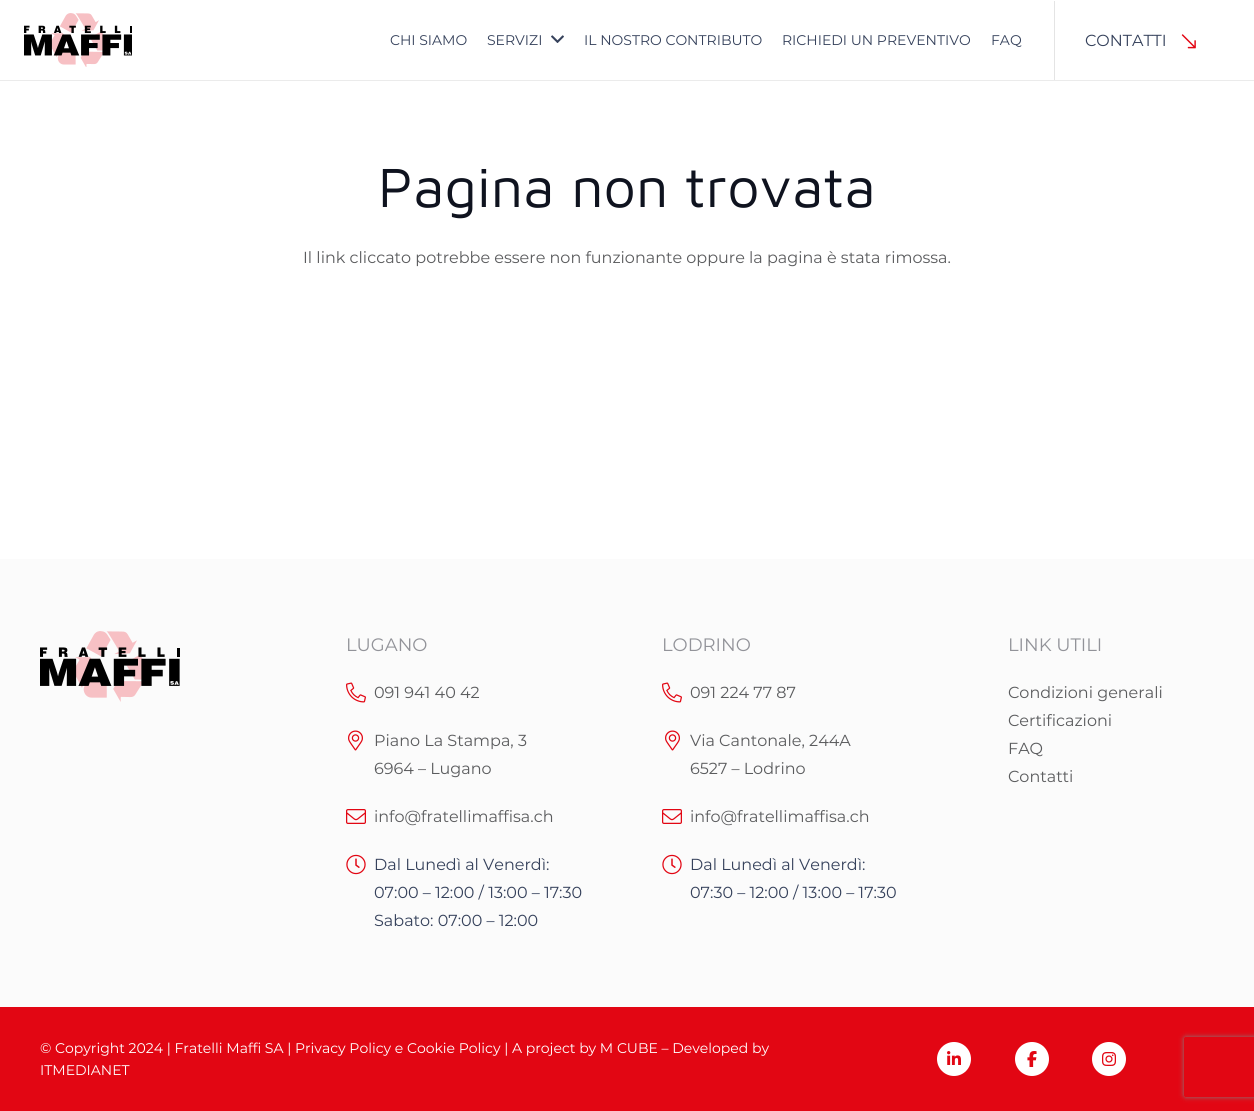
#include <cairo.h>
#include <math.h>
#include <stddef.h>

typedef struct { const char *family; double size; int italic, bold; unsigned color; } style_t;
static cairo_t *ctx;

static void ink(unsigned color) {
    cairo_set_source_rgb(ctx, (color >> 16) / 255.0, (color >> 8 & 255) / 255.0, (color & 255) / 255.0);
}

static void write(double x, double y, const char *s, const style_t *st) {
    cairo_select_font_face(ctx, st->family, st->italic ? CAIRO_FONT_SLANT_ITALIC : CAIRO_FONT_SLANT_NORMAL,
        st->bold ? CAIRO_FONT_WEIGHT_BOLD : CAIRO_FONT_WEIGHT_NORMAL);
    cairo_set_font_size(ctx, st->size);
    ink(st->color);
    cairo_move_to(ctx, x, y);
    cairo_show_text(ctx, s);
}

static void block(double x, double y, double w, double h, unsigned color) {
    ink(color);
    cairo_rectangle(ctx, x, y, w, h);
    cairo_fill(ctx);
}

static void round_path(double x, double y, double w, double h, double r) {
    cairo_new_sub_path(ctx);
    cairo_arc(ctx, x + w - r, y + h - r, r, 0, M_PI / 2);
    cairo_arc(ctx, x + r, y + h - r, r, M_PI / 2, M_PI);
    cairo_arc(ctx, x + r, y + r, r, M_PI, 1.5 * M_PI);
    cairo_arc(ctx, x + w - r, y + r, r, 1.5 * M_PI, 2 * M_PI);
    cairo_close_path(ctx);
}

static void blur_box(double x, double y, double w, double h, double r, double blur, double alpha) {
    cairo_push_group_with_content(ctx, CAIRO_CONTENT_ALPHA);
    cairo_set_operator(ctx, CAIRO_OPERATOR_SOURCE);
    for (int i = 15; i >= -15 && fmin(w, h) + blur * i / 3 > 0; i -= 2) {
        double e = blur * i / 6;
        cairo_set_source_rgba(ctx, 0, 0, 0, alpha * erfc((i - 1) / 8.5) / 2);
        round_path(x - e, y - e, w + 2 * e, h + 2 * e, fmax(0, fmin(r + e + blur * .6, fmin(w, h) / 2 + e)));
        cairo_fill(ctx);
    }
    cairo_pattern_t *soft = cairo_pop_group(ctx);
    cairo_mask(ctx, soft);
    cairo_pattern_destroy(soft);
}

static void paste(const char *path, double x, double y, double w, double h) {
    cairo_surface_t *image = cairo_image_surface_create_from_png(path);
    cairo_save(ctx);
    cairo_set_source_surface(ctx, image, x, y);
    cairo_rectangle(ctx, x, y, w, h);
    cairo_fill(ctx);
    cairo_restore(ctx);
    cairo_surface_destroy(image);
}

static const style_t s1 = {"Montserrat", 14, 0, 0, 0x35415b};
static const style_t s2 = {"Montserrat", 16, 0, 0, 0x35415b};
static const style_t s3 = {"Maven Pro", 57, 0, 0, 0x0f131f};
static const style_t s4 = {"Montserrat", 16, 0, 0, 0x5b5c5e};
static const style_t s5 = {"Montserrat", 18, 0, 0, 0x929399};
static const style_t s6 = {"Montserrat", 14, 0, 0, 0xffffff};

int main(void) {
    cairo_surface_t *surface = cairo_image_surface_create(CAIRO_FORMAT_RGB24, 1254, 1111);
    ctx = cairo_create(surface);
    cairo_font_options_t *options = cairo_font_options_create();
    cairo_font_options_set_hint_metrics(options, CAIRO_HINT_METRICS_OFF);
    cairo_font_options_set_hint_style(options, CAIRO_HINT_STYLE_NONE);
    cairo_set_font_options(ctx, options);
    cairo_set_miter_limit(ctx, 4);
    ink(0xffffff);
    cairo_paint(ctx);
    block(0, 80, 1254, 1, 0xebebeb);
    paste("pic1.png", 24, 13, 108, 54);
    write(390, 45, "CHI SIAMO", &s1);
    write(487, 45, "SERVIZI", &s1);
    paste("pic2.png", 551, 35, 13, 8);
    write(584, 45, "IL NOSTRO CONTRIBUTO", &s1);
    write(782, 45, "RICHIEDI UN PREVENTIVO", &s1);
    write(991, 45, "FAQ", &s1);
    block(1054, 1, 1, 79, 0xe4e4e4);
    write(1085, 46, "CONTATTI", &s2);
    paste("pic3.png", 1181, 34, 15, 15);
    write(378, 207, "Pagina non trovata", &s3);
    write(303, 263, "Il link cliccato potrebbe essere non funzionante oppure la pagina è stata rimossa.", &s4);
    block(0, 559, 1254, 448, 0xfbfbfb);
    paste("pic4.png", 40, 631, 140, 71);
    write(346, 651, "LUGANO", &s5);
    paste("pic5.png", 346, 682, 20, 21);
    write(374, 698, "091 941 40 42", &s4);
    paste("pic6.png", 348, 730, 15, 21);
    write(374, 746, "Piano La Stampa, 3", &s4);
    write(374, 774, "6964 – Lugano", &s4);
    paste("pic7.png", 346, 809, 20, 15);
    write(374, 822, "info@fratellimaffisa.ch", &s4);
    paste("pic8.png", 346, 854, 20, 21);
    write(374, 870, "Dal Lunedì al Venerdì:", &s2);
    write(374, 898, "07:00 – 12:00 / 13:00 – 17:30", &s2);
    write(374, 926, "Sabato: 07:00 – 12:00", &s2);
    write(662, 651, "LODRINO", &s5);
    paste("pic5.png", 662, 682, 20, 21);
    write(690, 698, "091 224 77 87", &s4);
    paste("pic6.png", 665, 730, 15, 21);
    write(690, 746, "Via Cantonale, 244A", &s4);
    write(690, 774, "6527 – Lodrino", &s4);
    paste("pic7.png", 662, 809, 20, 15);
    write(690, 822, "info@fratellimaffisa.ch", &s4);
    paste("pic8.png", 662, 854, 20, 21);
    write(690, 870, "Dal Lunedì al Venerdì:", &s2);
    write(690, 898, "07:30 – 12:00 / 13:00 – 17:30", &s2);
    write(1008, 651, "LINK UTILI", &s5);
    write(1008, 698, "Condizioni generali", &s4);
    write(1008, 726, "Certificazioni", &s4);
    write(1008, 754, "FAQ", &s4);
    write(1008, 782, "Contatti", &s4);
    block(0, 1007, 1254, 104, 0xe20613);
    write(40, 1053, "© Copyright 2024 | Fratelli Maffi SA | Privacy Policy e Cookie Policy | A project by M CUBE – Developed by", &s6);
    write(40, 1075, "ITMEDIANET", &s6);
    cairo_new_path(ctx);
    cairo_arc(ctx, 954, 1059, 17, 0, 2 * M_PI);
    cairo_fill(ctx);
    paste("pic9.png", 947, 1051, 14, 14);
    cairo_arc(ctx, 1032, 1059, 17, 0, 2 * M_PI);
    cairo_fill(ctx);
    paste("pic10.png", 1027, 1051, 10, 16);
    cairo_arc(ctx, 1109, 1059, 17, 0, 2 * M_PI);
    cairo_fill(ctx);
    paste("pic11.png", 1102, 1052, 14, 14);
    cairo_save(ctx);
    cairo_set_fill_rule(ctx, CAIRO_FILL_RULE_EVEN_ODD);
    cairo_new_path(ctx);
    cairo_move_to(ctx, 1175, 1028);
    cairo_line_to(ctx, 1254, 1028);
    cairo_line_to(ctx, 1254, 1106);
    cairo_line_to(ctx, 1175, 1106);
    cairo_close_path(ctx);
    cairo_move_to(ctx, 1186, 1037);
    cairo_line_to(ctx, 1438, 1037);
    cairo_curve_to(ctx, 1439, 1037, 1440, 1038, 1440, 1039);
    cairo_line_to(ctx, 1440, 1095);
    cairo_curve_to(ctx, 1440, 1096, 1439, 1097, 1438, 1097);
    cairo_line_to(ctx, 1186, 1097);
    cairo_curve_to(ctx, 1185, 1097, 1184, 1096, 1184, 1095);
    cairo_line_to(ctx, 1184, 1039);
    cairo_curve_to(ctx, 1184, 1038, 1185, 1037, 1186, 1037);
    cairo_close_path(ctx);
    cairo_clip(ctx);
    ink(0x808080);
    blur_box(1184, 1037, 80, 60, 2, 2.5, 1);
    cairo_restore(ctx);
    cairo_surface_write_to_png(surface, "screenshot.png");
    cairo_font_options_destroy(options);
    cairo_destroy(ctx);
    cairo_surface_destroy(surface);
    return 0;
}
